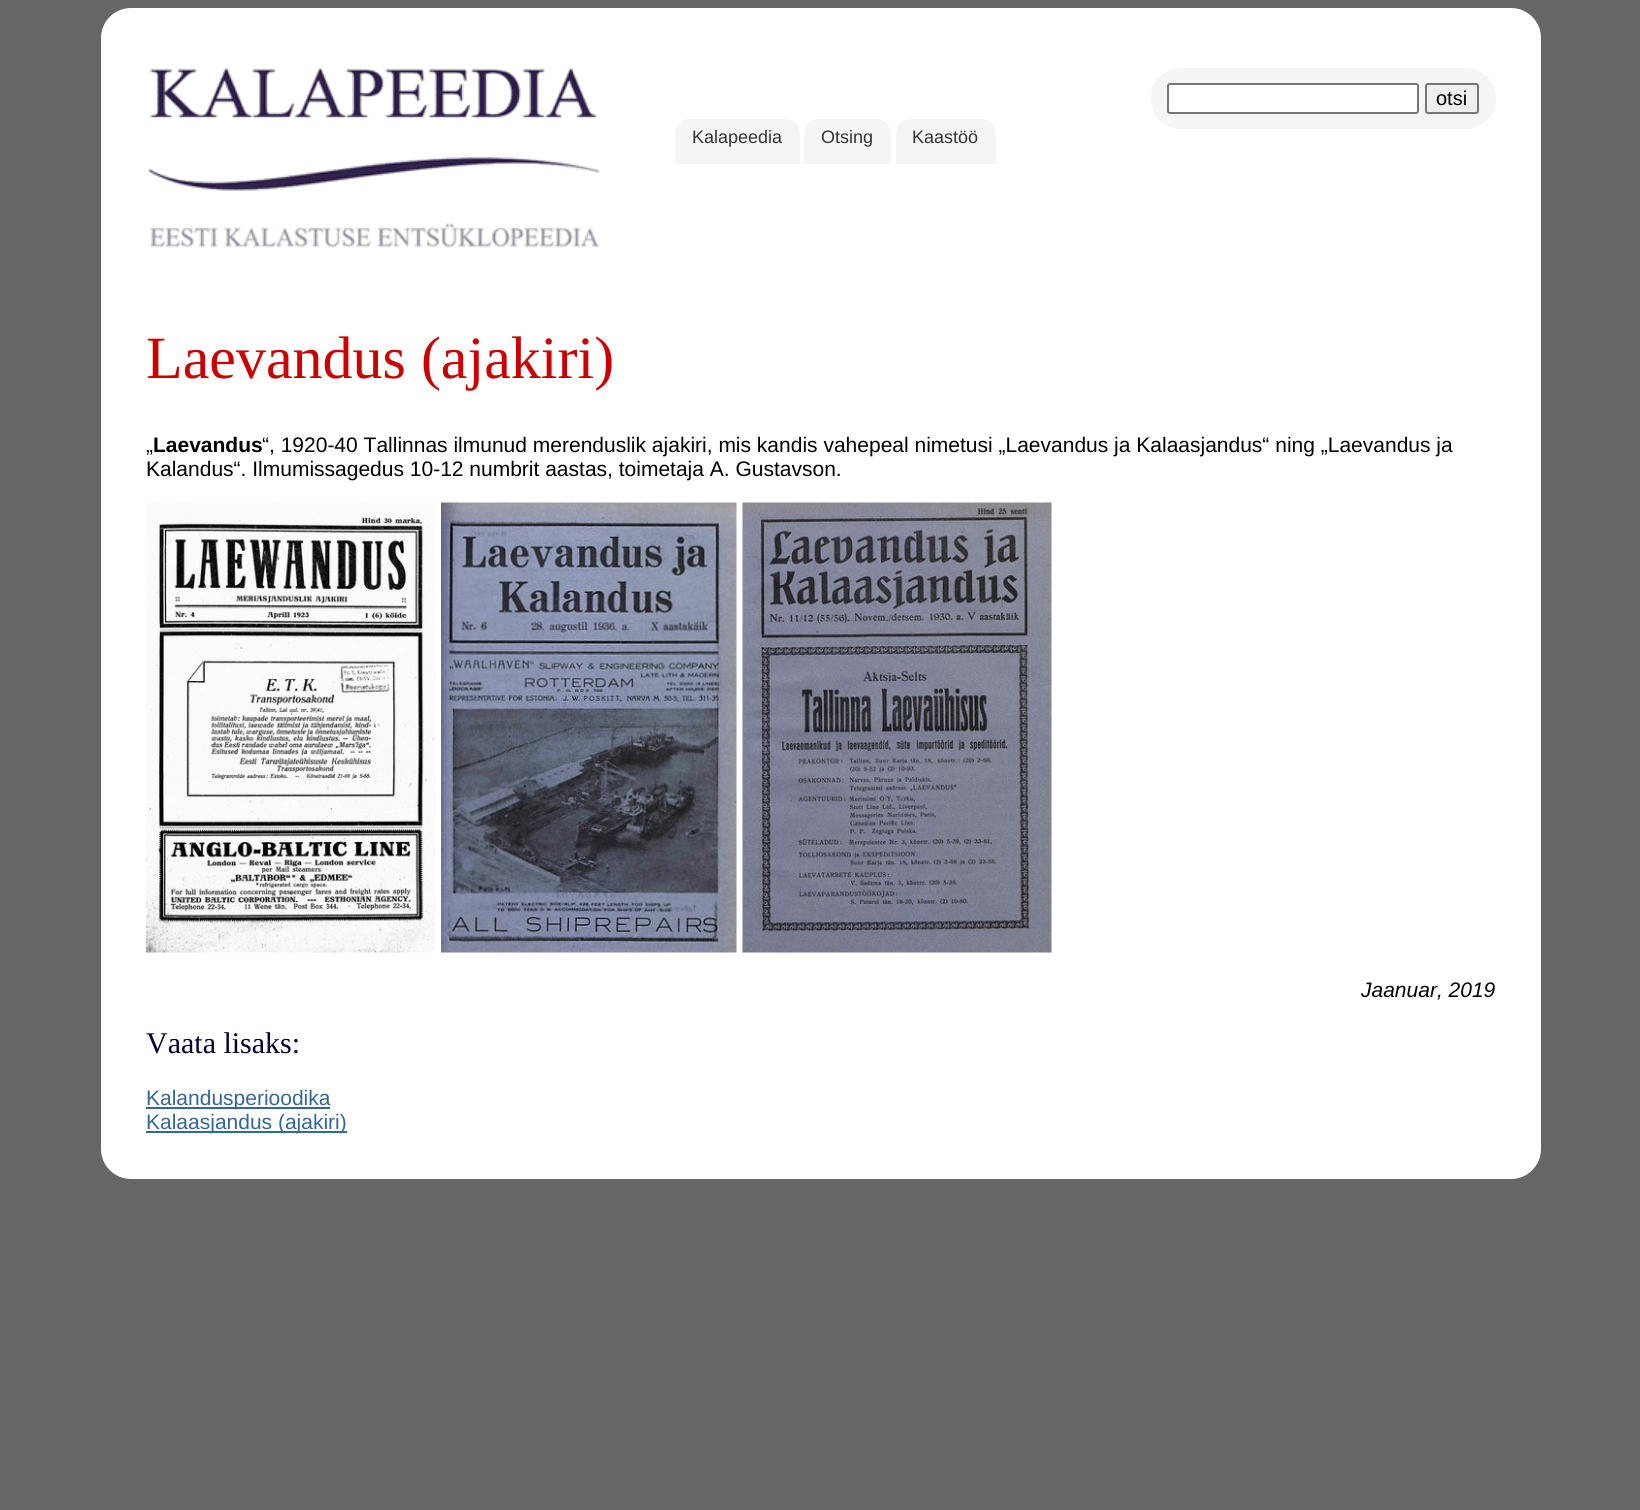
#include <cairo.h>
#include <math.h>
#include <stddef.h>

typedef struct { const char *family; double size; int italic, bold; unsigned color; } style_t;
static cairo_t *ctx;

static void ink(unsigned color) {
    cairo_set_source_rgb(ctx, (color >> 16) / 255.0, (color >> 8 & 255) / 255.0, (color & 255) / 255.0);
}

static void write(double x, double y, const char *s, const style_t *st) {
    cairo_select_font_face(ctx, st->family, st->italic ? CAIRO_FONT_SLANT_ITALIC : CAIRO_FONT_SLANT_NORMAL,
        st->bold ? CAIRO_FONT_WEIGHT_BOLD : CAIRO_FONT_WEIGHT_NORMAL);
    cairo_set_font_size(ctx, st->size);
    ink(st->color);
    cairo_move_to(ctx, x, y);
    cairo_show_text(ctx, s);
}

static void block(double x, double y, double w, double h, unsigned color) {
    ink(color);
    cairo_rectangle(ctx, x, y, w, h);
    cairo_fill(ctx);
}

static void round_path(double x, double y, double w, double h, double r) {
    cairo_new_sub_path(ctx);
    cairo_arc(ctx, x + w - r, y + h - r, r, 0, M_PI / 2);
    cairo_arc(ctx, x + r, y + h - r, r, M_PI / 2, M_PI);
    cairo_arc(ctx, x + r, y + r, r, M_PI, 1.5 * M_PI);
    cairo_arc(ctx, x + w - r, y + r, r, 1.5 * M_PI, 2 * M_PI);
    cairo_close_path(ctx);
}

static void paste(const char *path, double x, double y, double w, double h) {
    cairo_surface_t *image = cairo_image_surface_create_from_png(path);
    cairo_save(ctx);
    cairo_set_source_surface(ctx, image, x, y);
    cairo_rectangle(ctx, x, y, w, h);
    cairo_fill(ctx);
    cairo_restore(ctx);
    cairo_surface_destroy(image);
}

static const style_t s1 = {"Liberation Sans", 20, 0, 0, 0x000000};
static const style_t s2 = {"Liberation Sans", 18, 0, 0, 0x333333};
static const style_t s3 = {"Liberation Serif", 60, 0, 0, 0xcc0000};
static const style_t s4 = {"Liberation Sans", 21, 0, 0, 0x000000};
static const style_t s5 = {"Liberation Sans", 21, 0, 1, 0x000000};
static const style_t s6 = {"Liberation Sans", 21, 1, 0, 0x000000};
static const style_t s7 = {"Liberation Serif", 30, 0, 0, 0x000033};
static const style_t s8 = {"Liberation Sans", 21, 0, 0, 0x336699};

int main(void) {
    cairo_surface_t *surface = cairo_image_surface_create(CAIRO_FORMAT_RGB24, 1640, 1510);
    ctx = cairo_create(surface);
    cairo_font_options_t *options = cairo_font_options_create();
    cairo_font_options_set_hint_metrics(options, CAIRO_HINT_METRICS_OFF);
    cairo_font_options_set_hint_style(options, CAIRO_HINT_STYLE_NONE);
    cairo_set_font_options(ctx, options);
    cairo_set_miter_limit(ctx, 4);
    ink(0x666666);
    cairo_paint(ctx);
    ink(0xffffff);
    round_path(101, 8, 1440, 1171, 30);
    cairo_fill(ctx);
    paste("pic1.png", 148, 67, 453, 181);
    ink(0xf5f5f5);
    round_path(1151, 68, 345, 61, 30);
    cairo_fill(ctx);
    ink(0xffffff);
    round_path(1168, 84, 250, 29, 2);
    cairo_fill_preserve(ctx);
    ink(0x767676);
    cairo_stroke(ctx);
    ink(0xefefef);
    round_path(1426, 84, 52, 29, 2);
    cairo_fill_preserve(ctx);
    ink(0x767676);
    cairo_stroke(ctx);
    write(1436, 105, "otsi", &s1);
    ink(0xf5f5f5);
    cairo_new_path(ctx);
    cairo_move_to(ctx, 690, 119);
    cairo_line_to(ctx, 785, 119);
    cairo_curve_to(ctx, 793.5, 119, 800, 125.5, 800, 134);
    cairo_line_to(ctx, 800, 164);
    cairo_line_to(ctx, 675, 164);
    cairo_line_to(ctx, 675, 134);
    cairo_curve_to(ctx, 675, 125.5, 681.5, 119, 690, 119);
    cairo_close_path(ctx);
    cairo_fill(ctx);
    write(692, 143, "Kalapeedia", &s2);
    ink(0xf5f5f5);
    cairo_new_path(ctx);
    cairo_move_to(ctx, 819, 119);
    cairo_line_to(ctx, 876, 119);
    cairo_curve_to(ctx, 884.5, 119, 891, 125.5, 891, 134);
    cairo_line_to(ctx, 891, 164);
    cairo_line_to(ctx, 804, 164);
    cairo_line_to(ctx, 804, 134);
    cairo_curve_to(ctx, 804, 125.5, 810.5, 119, 819, 119);
    cairo_close_path(ctx);
    cairo_fill(ctx);
    write(821, 143, "Otsing", &s2);
    ink(0xf5f5f5);
    cairo_new_path(ctx);
    cairo_move_to(ctx, 911, 119);
    cairo_line_to(ctx, 981, 119);
    cairo_curve_to(ctx, 989.5, 119, 996, 125.5, 996, 134);
    cairo_line_to(ctx, 996, 164);
    cairo_line_to(ctx, 896, 164);
    cairo_line_to(ctx, 896, 134);
    cairo_curve_to(ctx, 896, 125.5, 902.5, 119, 911, 119);
    cairo_close_path(ctx);
    cairo_fill(ctx);
    write(912, 143, "Kaastöö", &s2);
    write(146, 378, "Laevandus (ajakiri)", &s3);
    write(146, 452, "„", &s4);
    write(153, 452, "Laevandus", &s5);
    write(262, 452, "“, 1920-40 Tallinnas ilmunud merenduslik ajakiri, mis kandis vahepeal nimetusi „Laevandus ja Kalaasjandus“ ning „Laevandus ja", &s4);
    write(146, 476, "Kalandus“. Ilmumissagedus 10-12 numbrit aastas, toimetaja A. Gustavson.", &s4);
    paste("pic2.png", 145, 502, 290, 451);
    paste("pic3.png", 441, 502, 296, 451);
    paste("pic4.png", 742, 502, 310, 451);
    write(1361, 997, "Jaanuar, 2019", &s6);
    write(146, 1053, "Vaata lisaks:", &s7);
    block(146, 1107, 184, 2, 0x336699);
    write(146, 1105, "Kalandusperioodika", &s8);
    block(146, 1131, 201, 2, 0x336699);
    write(146, 1129, "Kalaasjandus (ajakiri)", &s8);
    cairo_surface_write_to_png(surface, "screenshot.png");
    cairo_font_options_destroy(options);
    cairo_destroy(ctx);
    cairo_surface_destroy(surface);
    return 0;
}
